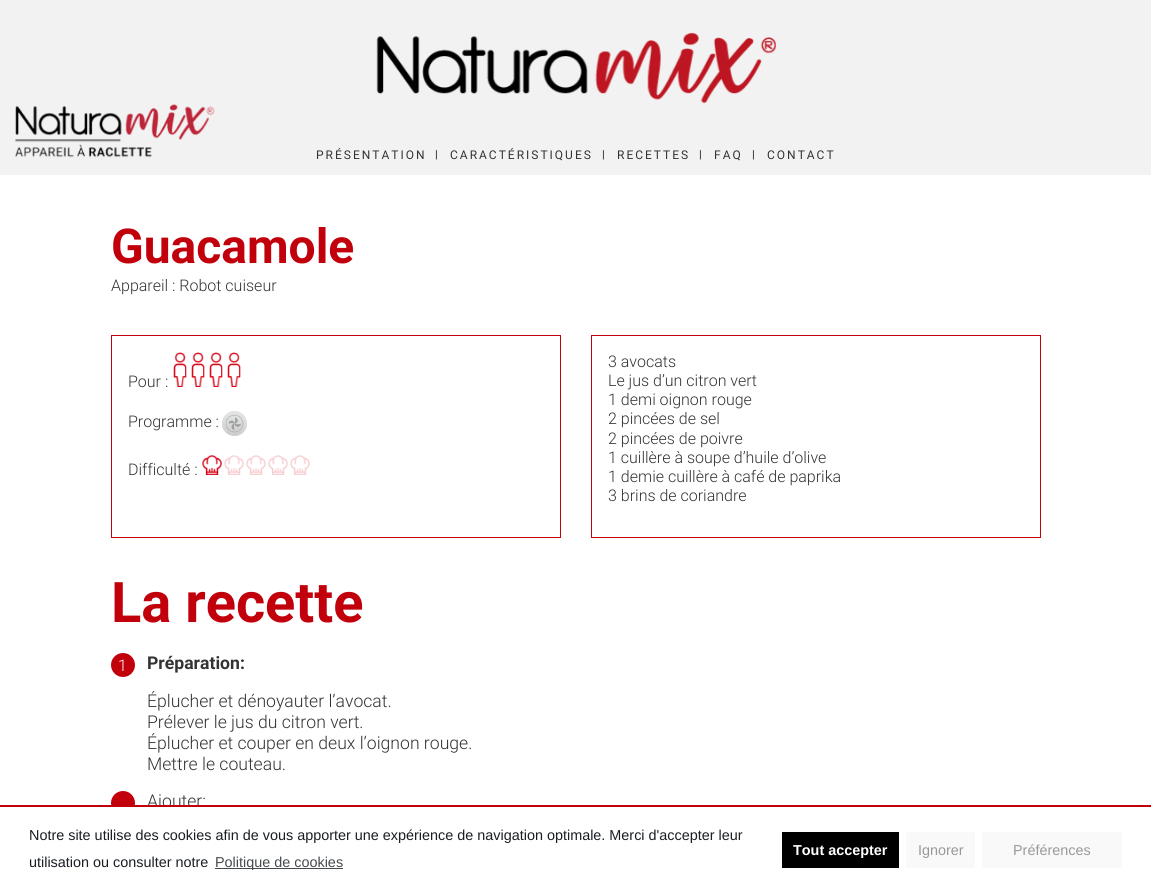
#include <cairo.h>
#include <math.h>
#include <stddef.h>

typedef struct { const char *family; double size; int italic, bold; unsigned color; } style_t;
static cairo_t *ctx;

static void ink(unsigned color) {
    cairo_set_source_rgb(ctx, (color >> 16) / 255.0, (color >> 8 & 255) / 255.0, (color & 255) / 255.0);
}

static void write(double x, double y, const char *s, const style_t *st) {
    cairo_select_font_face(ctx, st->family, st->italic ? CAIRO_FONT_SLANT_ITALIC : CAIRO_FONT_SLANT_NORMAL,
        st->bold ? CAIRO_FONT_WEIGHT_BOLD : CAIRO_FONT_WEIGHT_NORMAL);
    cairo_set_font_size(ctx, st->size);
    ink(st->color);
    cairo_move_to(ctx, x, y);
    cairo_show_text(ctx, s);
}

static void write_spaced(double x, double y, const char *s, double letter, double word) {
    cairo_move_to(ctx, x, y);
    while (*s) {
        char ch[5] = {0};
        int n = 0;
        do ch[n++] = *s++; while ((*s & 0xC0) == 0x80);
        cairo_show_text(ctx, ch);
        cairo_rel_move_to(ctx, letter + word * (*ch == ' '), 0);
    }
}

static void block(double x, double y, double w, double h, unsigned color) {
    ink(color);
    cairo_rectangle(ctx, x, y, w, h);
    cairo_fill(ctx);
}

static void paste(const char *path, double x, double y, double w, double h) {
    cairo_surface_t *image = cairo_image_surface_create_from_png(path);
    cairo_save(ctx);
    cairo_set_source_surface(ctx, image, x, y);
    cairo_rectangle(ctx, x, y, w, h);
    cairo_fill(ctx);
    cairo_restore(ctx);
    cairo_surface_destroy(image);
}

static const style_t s1 = {"Roboto", 11, 0, 1, 0x333333};
static const style_t s2 = {"Roboto", 48, 0, 1, 0xc2000b};
static const style_t s3 = {"Roboto Light", 16, 0, 0, 0x333333};
static const style_t s4 = {"Roboto", 56, 0, 1, 0xc2000b};
static const style_t s5 = {"Roboto Light", 16, 0, 0, 0xffffff};
static const style_t s6 = {"Roboto", 17.6, 0, 1, 0x333333};
static const style_t s7 = {"Roboto Light", 17.6, 0, 0, 0x333333};
static const style_t s8 = {"Liberation Sans", 14.4, 0, 0, 0x191e23};
static const style_t s9 = {"Liberation Sans", 14.4, 0, 0, 0x474b4f};
static const style_t s10 = {"Liberation Sans", 14.4, 0, 1, 0xffffff};
static const style_t s11 = {"Liberation Sans", 14.4, 0, 0, 0x999999};

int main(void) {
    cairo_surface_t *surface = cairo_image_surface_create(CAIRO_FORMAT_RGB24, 1151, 893);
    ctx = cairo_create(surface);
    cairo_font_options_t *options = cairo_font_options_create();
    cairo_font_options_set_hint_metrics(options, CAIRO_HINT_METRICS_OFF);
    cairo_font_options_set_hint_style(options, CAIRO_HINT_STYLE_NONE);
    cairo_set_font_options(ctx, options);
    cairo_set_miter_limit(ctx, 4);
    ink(0xffffff);
    cairo_paint(ctx);
    block(0, 0, 1151, 175, 0xf2f2f2);
    paste("pic1.png", 376, 32, 400, 72);
    paste("pic2.png", 15, 104, 200, 54);
    cairo_select_font_face(ctx, "Roboto", CAIRO_FONT_SLANT_NORMAL, CAIRO_FONT_WEIGHT_NORMAL);
    cairo_set_font_size(ctx, 12);
    ink(0x333333);
    write_spaced(316, 159, "PRÉSENTATION", 2, 0);
    write(435, 158, "|", &s1);
    cairo_select_font_face(ctx, "Roboto", CAIRO_FONT_SLANT_NORMAL, CAIRO_FONT_WEIGHT_NORMAL);
    cairo_set_font_size(ctx, 12);
    write_spaced(450, 159, "CARACTÉRISTIQUES", 2, 0);
    write(602, 158, "|", &s1);
    cairo_select_font_face(ctx, "Roboto", CAIRO_FONT_SLANT_NORMAL, CAIRO_FONT_WEIGHT_NORMAL);
    cairo_set_font_size(ctx, 12);
    write_spaced(617, 159, "RECETTES", 2, 0);
    write(699, 158, "|", &s1);
    cairo_select_font_face(ctx, "Roboto", CAIRO_FONT_SLANT_NORMAL, CAIRO_FONT_WEIGHT_NORMAL);
    cairo_set_font_size(ctx, 12);
    write_spaced(714, 159, "FAQ", 2, 0);
    write(752, 158, "|", &s1);
    cairo_select_font_face(ctx, "Roboto", CAIRO_FONT_SLANT_NORMAL, CAIRO_FONT_WEIGHT_NORMAL);
    cairo_set_font_size(ctx, 12);
    write_spaced(767, 159, "CONTACT", 2, 0);
    write(111, 263, "Guacamole", &s2);
    write(111, 291, "Appareil : Robot cuiseur", &s3);
    cairo_rectangle(ctx, 111.5, 335.5, 449, 202);
    ink(0xc2000b);
    cairo_set_line_width(ctx, 1);
    cairo_stroke(ctx);
    write(128, 387, "Pour :", &s3);
    paste("pic3.png", 173, 352, 14, 35);
    paste("pic4.png", 191, 352, 14, 35);
    paste("pic3.png", 209, 352, 14, 35);
    paste("pic4.png", 227, 352, 14, 35);
    write(128, 427, "Programme :", &s3);
    paste("pic5.png", 222, 411, 25, 25);
    write(128, 475, "Difficulté :", &s3);
    paste("pic6.png", 202, 455, 20, 20);
    paste("pic7.png", 224, 455, 20, 20);
    paste("pic7.png", 246, 455, 20, 20);
    paste("pic7.png", 268, 455, 20, 20);
    paste("pic7.png", 290, 455, 20, 20);
    cairo_rectangle(ctx, 591.5, 335.5, 449, 202);
    ink(0xc2000b);
    cairo_stroke(ctx);
    write(608, 367, "3 avocats", &s3);
    write(608, 386, "Le jus d’un citron vert", &s3);
    write(608, 405, "1 demi oignon rouge", &s3);
    write(608, 424, "2 pincées de sel", &s3);
    write(608, 444, "2 pincées de poivre", &s3);
    write(608, 463, "1 cuillère à soupe d’huile d’olive", &s3);
    write(608, 482, "1 demie cuillère à café de paprika", &s3);
    write(608, 501, "3 brins de coriandre", &s3);
    write(111, 622, "La recette", &s4);
    cairo_new_path(ctx);
    cairo_arc(ctx, 123, 665, 12, 0, 2 * M_PI);
    cairo_fill(ctx);
    write(118, 671, "1", &s5);
    write(147, 669, "Préparation:", &s6);
    write(147, 707, "Éplucher et dénoyauter l’avocat.", &s7);
    write(147, 728, "Prélever le jus du citron vert.", &s7);
    write(147, 749, "Éplucher et couper en deux l’oignon rouge.", &s7);
    write(147, 770, "Mettre le couteau.", &s7);
    ink(0xc2000b);
    cairo_new_path(ctx);
    cairo_arc(ctx, 123, 803, 12, 0, 2 * M_PI);
    cairo_fill(ctx);
    write(147, 807, "Ajouter:", &s7);
    block(111, 807, 93, 8, 0xffffff);
    block(0, 805, 1151, 2, 0xc2000b);
    write(29, 840, "Notre site utilise des cookies afin de vous apporter une expérience de navigation optimale. Merci d'accepter leur", &s8);
    write(29, 867, "utilisation ou consulter notre", &s8);
    block(215, 868, 128, 1, 0x474b4f);
    write(215, 867, "Politique de cookies", &s9);
    block(782, 832, 117, 36, 0x000000);
    write(793, 855, "Tout accepter", &s10);
    block(906, 832, 69, 36, 0xf9f9f9);
    write(918, 855, "Ignorer", &s11);
    block(982, 832, 140, 36, 0xf9f9f9);
    write(1013, 855, "Préférences", &s11);
    cairo_surface_write_to_png(surface, "screenshot.png");
    cairo_font_options_destroy(options);
    cairo_destroy(ctx);
    cairo_surface_destroy(surface);
    return 0;
}
